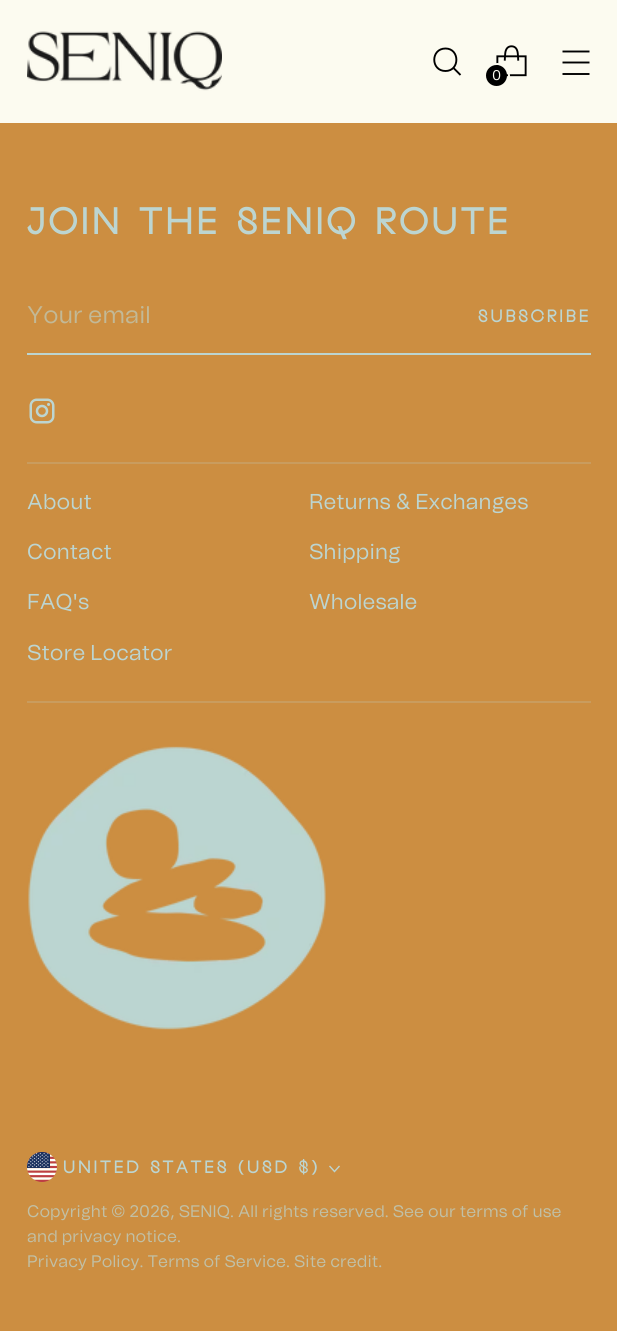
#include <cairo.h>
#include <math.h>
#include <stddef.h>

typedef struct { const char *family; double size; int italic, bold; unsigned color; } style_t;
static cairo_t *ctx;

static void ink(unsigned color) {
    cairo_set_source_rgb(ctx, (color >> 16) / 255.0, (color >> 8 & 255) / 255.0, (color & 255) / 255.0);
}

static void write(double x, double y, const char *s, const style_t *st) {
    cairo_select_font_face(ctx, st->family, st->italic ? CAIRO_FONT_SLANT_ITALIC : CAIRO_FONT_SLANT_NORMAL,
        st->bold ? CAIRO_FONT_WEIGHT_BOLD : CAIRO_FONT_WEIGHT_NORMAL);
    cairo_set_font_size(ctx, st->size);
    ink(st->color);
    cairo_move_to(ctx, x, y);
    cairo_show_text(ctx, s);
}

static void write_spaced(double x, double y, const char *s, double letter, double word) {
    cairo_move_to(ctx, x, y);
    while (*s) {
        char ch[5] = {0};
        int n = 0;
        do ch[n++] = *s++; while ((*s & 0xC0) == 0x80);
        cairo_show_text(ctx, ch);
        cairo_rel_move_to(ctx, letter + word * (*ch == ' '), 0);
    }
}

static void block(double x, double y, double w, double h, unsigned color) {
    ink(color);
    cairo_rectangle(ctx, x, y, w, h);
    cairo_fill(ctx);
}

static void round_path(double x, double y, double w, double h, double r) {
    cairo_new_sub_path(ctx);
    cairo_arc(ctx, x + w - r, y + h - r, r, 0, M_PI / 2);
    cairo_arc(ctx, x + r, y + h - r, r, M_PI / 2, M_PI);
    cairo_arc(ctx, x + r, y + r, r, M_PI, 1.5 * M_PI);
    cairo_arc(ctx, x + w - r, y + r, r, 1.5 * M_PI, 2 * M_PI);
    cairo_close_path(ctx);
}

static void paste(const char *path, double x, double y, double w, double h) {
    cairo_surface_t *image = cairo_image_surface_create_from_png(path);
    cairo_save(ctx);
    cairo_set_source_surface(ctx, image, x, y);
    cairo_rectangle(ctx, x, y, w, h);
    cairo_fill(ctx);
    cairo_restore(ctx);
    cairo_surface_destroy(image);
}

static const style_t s1 = {"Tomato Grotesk", 24, 0, 0, 0xc2b997};

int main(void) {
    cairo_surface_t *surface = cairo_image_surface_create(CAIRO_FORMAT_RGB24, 617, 1331);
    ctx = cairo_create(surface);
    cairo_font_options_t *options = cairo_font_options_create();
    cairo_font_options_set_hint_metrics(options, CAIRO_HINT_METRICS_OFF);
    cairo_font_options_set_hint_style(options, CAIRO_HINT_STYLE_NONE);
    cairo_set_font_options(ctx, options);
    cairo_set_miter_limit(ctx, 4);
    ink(0xfcfbf0);
    cairo_paint(ctx);
    paste("pic1.png", 27, 31, 195, 60);
    cairo_new_path(ctx);
    cairo_move_to(ctx, 445.5, 71);
    cairo_curve_to(ctx, 460, 71, 460, 48.5, 445.5, 48.5);
    cairo_curve_to(ctx, 430.5, 48.5, 430.5, 71, 445.5, 71);
    cairo_close_path(ctx);
    ink(0x000000);
    cairo_set_line_width(ctx, 1.9);
    cairo_set_line_cap(ctx, CAIRO_LINE_CAP_ROUND);
    cairo_stroke(ctx);
    cairo_new_path(ctx);
    cairo_move_to(ctx, 453.5, 68);
    cairo_line_to(ctx, 460.5, 75);
    cairo_set_line_cap(ctx, CAIRO_LINE_CAP_BUTT);
    cairo_stroke(ctx);
    paste("pic2.png", 496, 45, 31, 32);
    round_path(486, 64, 23, 24, 11.5);
    ink(0xfcfbf0);
    cairo_set_line_width(ctx, 2);
    cairo_stroke(ctx);
    ink(0x000000);
    cairo_arc(ctx, 496.5, 75.5, 10.5, 0, 2 * M_PI);
    cairo_fill(ctx);
    cairo_select_font_face(ctx, "Tomato Grotesk", CAIRO_FONT_SLANT_NORMAL, CAIRO_FONT_WEIGHT_NORMAL);
    cairo_set_font_size(ctx, 14);
    ink(0xfcfbf0);
    write_spaced(492, 80, "0", 0.1, 0);
    cairo_new_path(ctx);
    cairo_move_to(ctx, 562.5, 62.5);
    cairo_line_to(ctx, 589.5, 62.5);
    cairo_move_to(ctx, 562.5, 51.5);
    cairo_line_to(ctx, 589.5, 51.5);
    cairo_move_to(ctx, 562.5, 74);
    cairo_line_to(ctx, 589.5, 74);
    ink(0x000000);
    cairo_set_line_width(ctx, 1.9);
    cairo_stroke(ctx);
    block(0, 123, 617, 1208, 0xcc8e41);
    block(27, 462, 564, 2, 0xc99c5e);
    cairo_select_font_face(ctx, "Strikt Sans", CAIRO_FONT_SLANT_NORMAL, CAIRO_FONT_WEIGHT_NORMAL);
    cairo_set_font_size(ctx, 35.75);
    ink(0xbcd5d1);
    write_spaced(27, 234, "JOIN THE SENIQ ROUTE", 2.9, 0);
    block(27, 353, 564, 2, 0xbcd5d1);
    write(27, 323, "Your email", &s1);
    cairo_select_font_face(ctx, "Strikt Sans", CAIRO_FONT_SLANT_NORMAL, CAIRO_FONT_WEIGHT_NORMAL);
    cairo_set_font_size(ctx, 16.7);
    ink(0xbcd5d1);
    write_spaced(478, 322, "SUBSCRIBE", 2.6, 0);
    paste("pic3.png", 29, 398, 26, 26);
    block(27, 701, 564, 2, 0xc99c5e);
    cairo_select_font_face(ctx, "Tomato Grotesk", CAIRO_FONT_SLANT_NORMAL, CAIRO_FONT_WEIGHT_NORMAL);
    cairo_set_font_size(ctx, 21.5);
    ink(0xbcd5d1);
    write_spaced(27, 509, "About", 0.1, 0);
    write_spaced(27, 559, "Contact", 0.1, 0);
    write_spaced(27, 609, "FAQ's", 0.1, 0);
    write_spaced(27, 660, "Store Locator", 0.1, 0);
    write_spaced(309, 509, "Returns & Exchanges", 0.1, 0);
    write_spaced(309, 559, "Shipping", 0.1, 0);
    write_spaced(309, 609, "Wholesale", 0.1, 0);
    paste("pic4.png", 28, 746, 298, 284);
    paste("pic5.png", 27, 1152, 30, 30);
    cairo_select_font_face(ctx, "Strikt Sans", CAIRO_FONT_SLANT_NORMAL, CAIRO_FONT_WEIGHT_NORMAL);
    cairo_set_font_size(ctx, 16.7);
    write_spaced(63, 1173, "UNITED STATES (USD $)", 2.6, 0);
    cairo_new_path(ctx);
    cairo_move_to(ctx, 329.5, 1166);
    cairo_line_to(ctx, 334.5, 1171.5);
    cairo_line_to(ctx, 339.5, 1166);
    cairo_set_line_width(ctx, 1.4);
    cairo_stroke(ctx);
    cairo_select_font_face(ctx, "Tomato Grotesk", CAIRO_FONT_SLANT_NORMAL, CAIRO_FONT_WEIGHT_NORMAL);
    ink(0xc1c0a6);
    write_spaced(27, 1217, "Copyright © 2026, SENIQ. All rights reserved. See our terms of use", 0.1, 0);
    write_spaced(27, 1242, "and privacy notice.", 0.1, 0);
    write_spaced(27, 1267, "Privacy Policy. Terms of Service. Site credit.", 0.1, 0);
    cairo_surface_write_to_png(surface, "screenshot.png");
    cairo_font_options_destroy(options);
    cairo_destroy(ctx);
    cairo_surface_destroy(surface);
    return 0;
}
